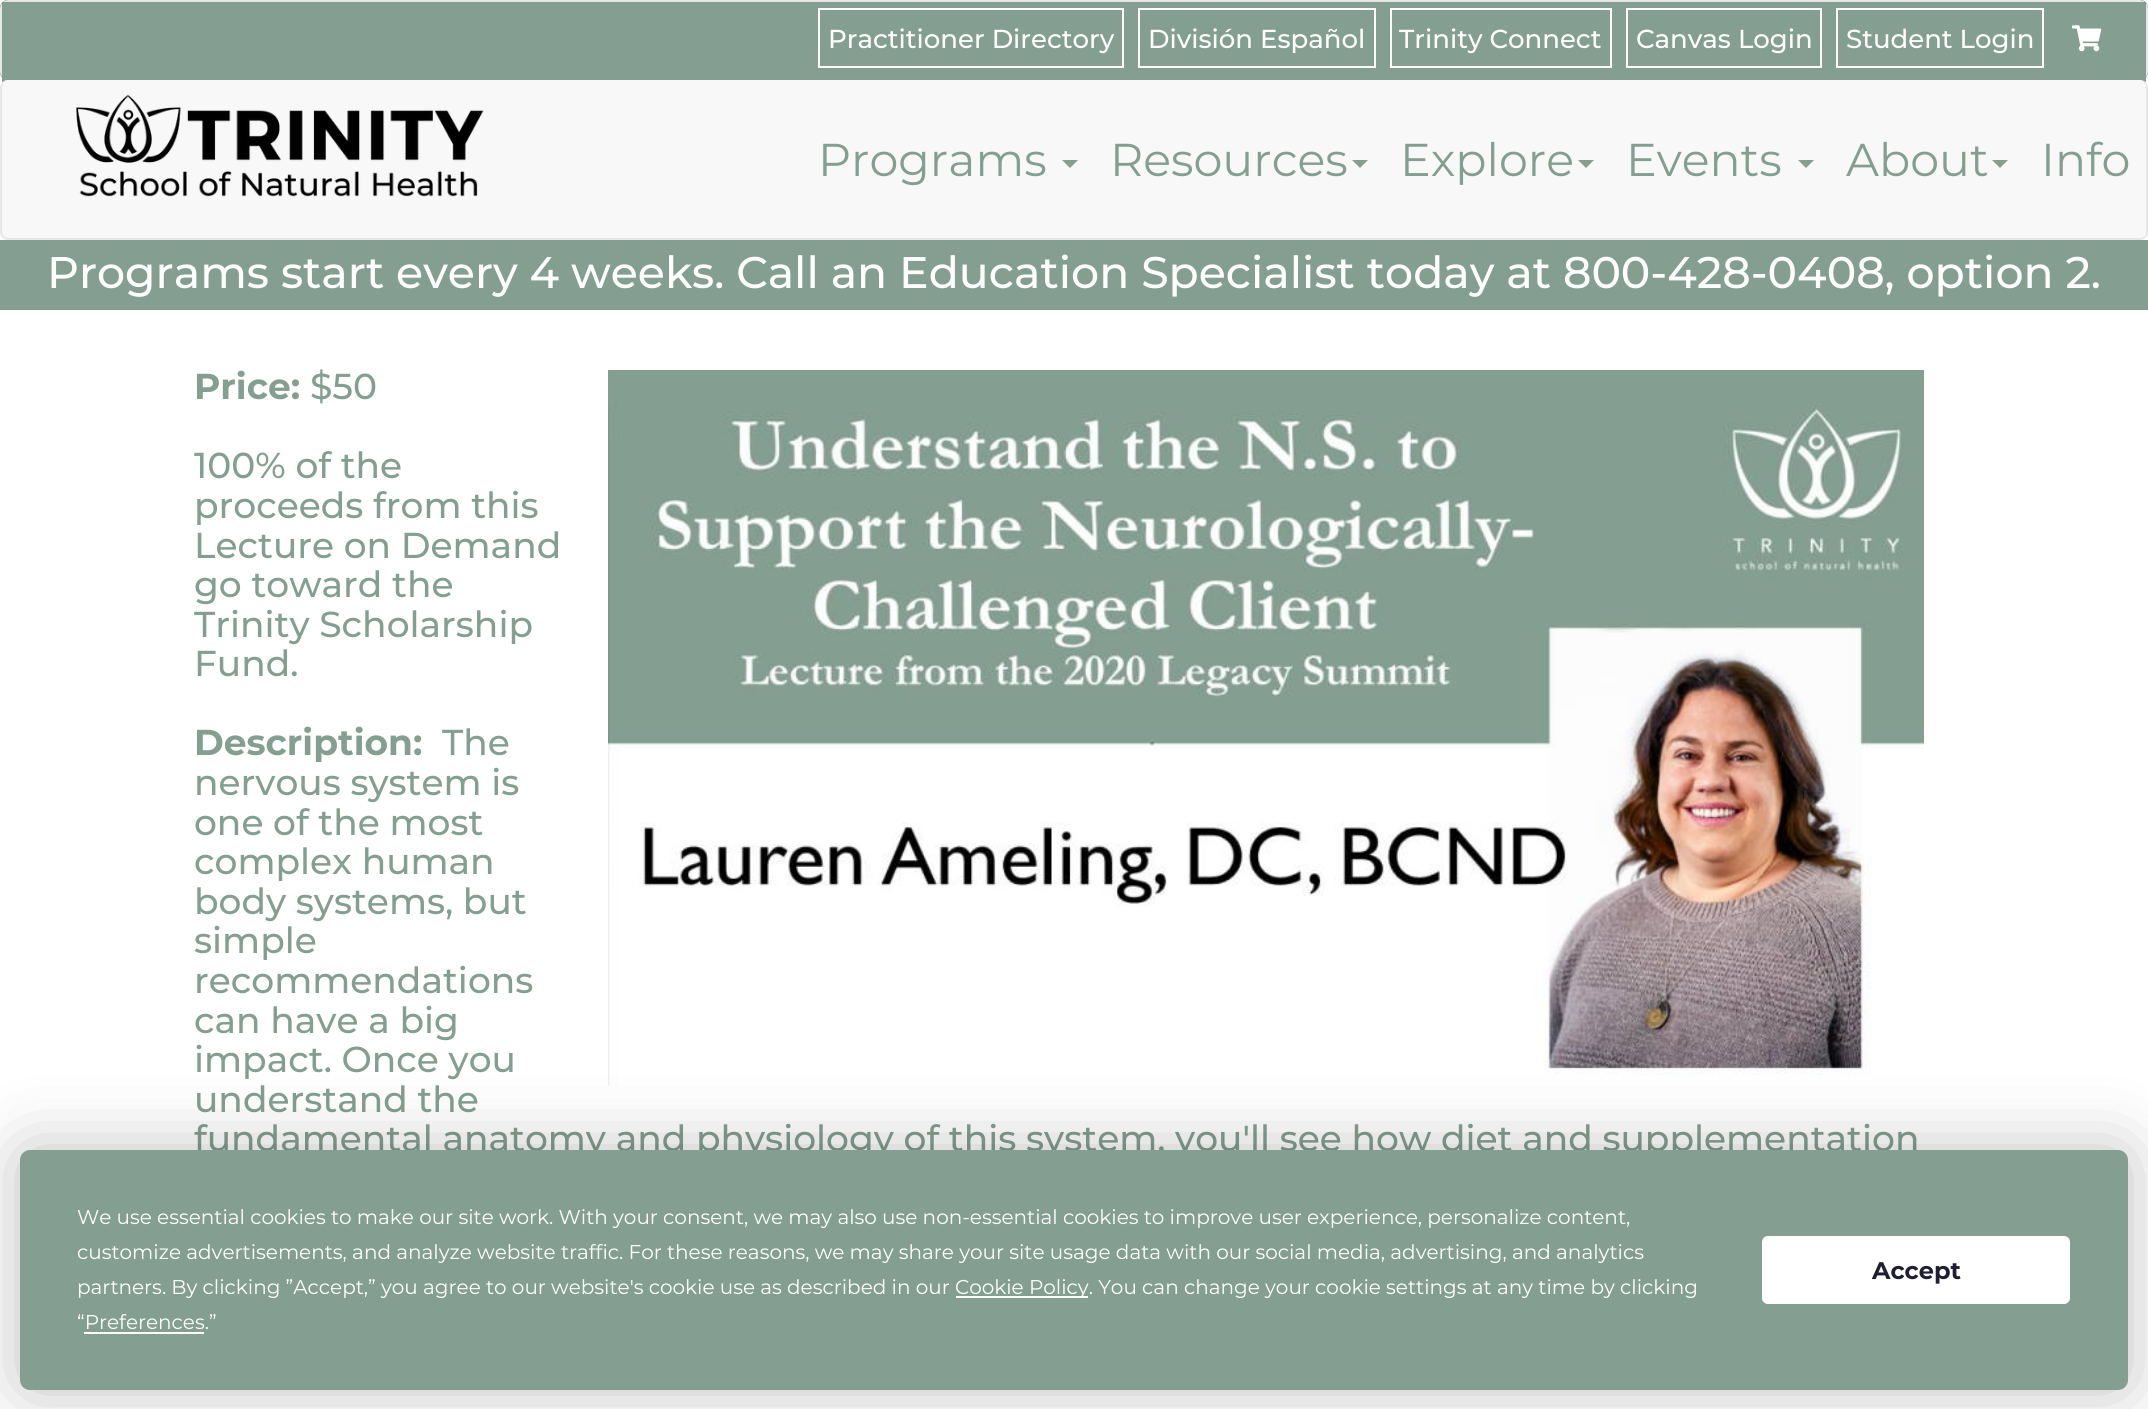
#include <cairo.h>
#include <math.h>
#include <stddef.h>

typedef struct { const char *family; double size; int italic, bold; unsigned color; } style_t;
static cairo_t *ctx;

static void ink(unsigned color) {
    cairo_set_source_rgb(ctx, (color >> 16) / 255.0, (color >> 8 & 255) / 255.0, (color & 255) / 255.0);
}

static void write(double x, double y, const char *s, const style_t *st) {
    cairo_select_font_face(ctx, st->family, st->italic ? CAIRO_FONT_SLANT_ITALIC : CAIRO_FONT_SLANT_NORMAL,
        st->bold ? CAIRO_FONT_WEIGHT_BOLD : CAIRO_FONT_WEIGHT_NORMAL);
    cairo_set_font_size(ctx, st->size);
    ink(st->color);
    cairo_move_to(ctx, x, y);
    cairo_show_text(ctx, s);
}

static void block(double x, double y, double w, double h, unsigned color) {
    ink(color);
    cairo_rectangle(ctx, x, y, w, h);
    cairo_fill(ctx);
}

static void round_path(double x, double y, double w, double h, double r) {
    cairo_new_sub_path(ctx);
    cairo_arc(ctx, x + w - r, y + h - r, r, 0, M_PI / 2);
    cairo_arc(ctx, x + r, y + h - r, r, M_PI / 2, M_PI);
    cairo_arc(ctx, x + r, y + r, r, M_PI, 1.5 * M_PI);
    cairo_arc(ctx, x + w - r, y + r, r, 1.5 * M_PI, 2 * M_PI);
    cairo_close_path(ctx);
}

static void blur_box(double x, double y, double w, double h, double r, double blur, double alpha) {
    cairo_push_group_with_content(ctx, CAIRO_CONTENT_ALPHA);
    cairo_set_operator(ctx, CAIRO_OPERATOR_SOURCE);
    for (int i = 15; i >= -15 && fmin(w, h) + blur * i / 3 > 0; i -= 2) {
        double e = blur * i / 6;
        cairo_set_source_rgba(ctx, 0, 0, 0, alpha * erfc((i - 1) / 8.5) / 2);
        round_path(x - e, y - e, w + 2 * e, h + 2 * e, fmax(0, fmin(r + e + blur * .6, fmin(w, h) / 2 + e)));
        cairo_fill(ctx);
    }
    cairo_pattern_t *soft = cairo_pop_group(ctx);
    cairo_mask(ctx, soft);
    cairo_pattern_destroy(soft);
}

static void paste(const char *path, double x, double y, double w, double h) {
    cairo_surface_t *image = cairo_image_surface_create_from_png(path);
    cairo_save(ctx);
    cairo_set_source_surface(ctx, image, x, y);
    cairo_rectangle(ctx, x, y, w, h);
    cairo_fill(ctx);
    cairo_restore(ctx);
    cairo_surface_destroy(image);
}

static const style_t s1 = {"Montserrat Medium", 26, 0, 0, 0xffffff};
static const style_t s2 = {"Montserrat Thin", 46, 0, 0, 0x849f91};
static const style_t s3 = {"Montserrat Medium", 44.2, 0, 0, 0xffffff};
static const style_t s4 = {"Montserrat", 36, 0, 1, 0x849f91};
static const style_t s5 = {"Montserrat Medium", 36, 0, 0, 0x849f91};
static const style_t s6 = {"Montserrat Thin", 20, 0, 0, 0xffffff};
static const style_t s7 = {"Montserrat", 24, 0, 1, 0x1f1e33};

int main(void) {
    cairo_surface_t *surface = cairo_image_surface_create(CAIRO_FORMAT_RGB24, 2148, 1409);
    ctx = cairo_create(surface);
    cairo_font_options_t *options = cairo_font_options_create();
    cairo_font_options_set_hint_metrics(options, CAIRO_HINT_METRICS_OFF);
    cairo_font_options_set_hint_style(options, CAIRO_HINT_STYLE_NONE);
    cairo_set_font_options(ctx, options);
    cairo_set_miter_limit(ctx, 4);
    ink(0xffffff);
    cairo_paint(ctx);
    ink(0x444444);
    round_path(0, 0, 2148, 80, 8);
    cairo_fill(ctx);
    ink(0xe7e7e7);
    cairo_set_fill_rule(ctx, CAIRO_FILL_RULE_EVEN_ODD);
    cairo_new_path(ctx);
    cairo_move_to(ctx, 8, 0);
    cairo_line_to(ctx, 2140, 0);
    cairo_curve_to(ctx, 2144, 0, 2148, 4, 2148, 8);
    cairo_line_to(ctx, 2148, 72);
    cairo_curve_to(ctx, 2148, 76, 2144, 80, 2140, 80);
    cairo_line_to(ctx, 8, 80);
    cairo_curve_to(ctx, 4, 80, 0, 76, 0, 72);
    cairo_line_to(ctx, 0, 8);
    cairo_curve_to(ctx, 0, 4, 4, 0, 8, 0);
    cairo_close_path(ctx);
    cairo_move_to(ctx, 8, 2);
    cairo_line_to(ctx, 2140, 2);
    cairo_curve_to(ctx, 2143, 2, 2146, 5, 2146, 8);
    cairo_line_to(ctx, 2146, 72);
    cairo_curve_to(ctx, 2146, 76, 2143, 80, 2140, 80);
    cairo_line_to(ctx, 8, 80);
    cairo_curve_to(ctx, 5, 80, 2, 76, 2, 72);
    cairo_line_to(ctx, 2, 8);
    cairo_curve_to(ctx, 2, 5, 5, 2, 8, 2);
    cairo_close_path(ctx);
    cairo_fill(ctx);
    block(2, 2, 2144, 80, 0x849f91);
    cairo_rectangle(ctx, 819, 9, 304, 58);
    ink(0xffffff);
    cairo_stroke(ctx);
    write(828, 48, "Practitioner Directory", &s1);
    cairo_rectangle(ctx, 1139, 9, 236, 58);
    cairo_stroke(ctx);
    write(1148, 48, "División Español", &s1);
    cairo_rectangle(ctx, 1391, 9, 220, 58);
    cairo_stroke(ctx);
    write(1399, 48, "Trinity Connect", &s1);
    cairo_rectangle(ctx, 1627, 9, 194, 58);
    cairo_stroke(ctx);
    write(1636, 48, "Canvas Login", &s1);
    cairo_rectangle(ctx, 1837, 9, 206, 58);
    cairo_stroke(ctx);
    write(1846, 48, "Student Login", &s1);
    paste("pic1.png", 2072, 25, 30, 27);
    ink(0xf8f8f8);
    round_path(0, 80, 2148, 160, 8);
    cairo_fill(ctx);
    ink(0xe7e7e7);
    cairo_new_path(ctx);
    cairo_move_to(ctx, 8, 80);
    cairo_line_to(ctx, 2140, 80);
    cairo_curve_to(ctx, 2144, 80, 2148, 84, 2148, 88);
    cairo_line_to(ctx, 2148, 232);
    cairo_curve_to(ctx, 2148, 236, 2144, 240, 2140, 240);
    cairo_line_to(ctx, 8, 240);
    cairo_curve_to(ctx, 4, 240, 0, 236, 0, 232);
    cairo_line_to(ctx, 0, 88);
    cairo_curve_to(ctx, 0, 84, 4, 80, 8, 80);
    cairo_close_path(ctx);
    cairo_move_to(ctx, 8, 80);
    cairo_line_to(ctx, 2140, 80);
    cairo_curve_to(ctx, 2143, 80, 2146, 84, 2146, 88);
    cairo_line_to(ctx, 2146, 232);
    cairo_curve_to(ctx, 2146, 235, 2143, 238, 2140, 238);
    cairo_line_to(ctx, 8, 238);
    cairo_curve_to(ctx, 5, 238, 2, 235, 2, 232);
    cairo_line_to(ctx, 2, 88);
    cairo_curve_to(ctx, 2, 84, 5, 80, 8, 80);
    cairo_close_path(ctx);
    cairo_fill(ctx);
    paste("pic2.png", 76, 94, 408, 103);
    write(818, 176, "Programs", &s2);
    cairo_set_fill_rule(ctx, CAIRO_FILL_RULE_WINDING);
    cairo_new_path(ctx);
    cairo_move_to(ctx, 1062, 160);
    cairo_line_to(ctx, 1078, 160);
    cairo_line_to(ctx, 1070, 168);
    cairo_close_path(ctx);
    cairo_fill(ctx);
    write(1110, 176, "Resources", &s2);
    cairo_new_path(ctx);
    cairo_move_to(ctx, 1352, 160);
    cairo_line_to(ctx, 1368, 160);
    cairo_line_to(ctx, 1360, 168);
    cairo_close_path(ctx);
    cairo_fill(ctx);
    write(1400, 176, "Explore", &s2);
    cairo_new_path(ctx);
    cairo_move_to(ctx, 1578, 160);
    cairo_line_to(ctx, 1594, 160);
    cairo_line_to(ctx, 1586, 168);
    cairo_close_path(ctx);
    cairo_fill(ctx);
    write(1626, 176, "Events", &s2);
    cairo_new_path(ctx);
    cairo_move_to(ctx, 1798, 160);
    cairo_line_to(ctx, 1814, 160);
    cairo_line_to(ctx, 1806, 168);
    cairo_close_path(ctx);
    cairo_fill(ctx);
    write(1846, 176, "About", &s2);
    cairo_new_path(ctx);
    cairo_move_to(ctx, 1992, 160);
    cairo_line_to(ctx, 2008, 160);
    cairo_line_to(ctx, 2000, 168);
    cairo_close_path(ctx);
    cairo_fill(ctx);
    write(2041, 176, "Info", &s2);
    block(0, 240, 2148, 70, 0x849f91);
    write(47, 288, "Programs start every 4 weeks. Call an Education Specialist today at 800-428-0408, option 2.", &s3);
    write(194, 399, "Price:", &s4);
    write(310, 399, "$50", &s5);
    paste("pic3.png", 608, 370, 1316, 716);
    write(194, 478, "100% of the", &s5);
    write(194, 518, "proceeds from this", &s5);
    write(194, 558, "Lecture on Demand", &s5);
    write(194, 597, "go toward the", &s5);
    write(194, 637, "Trinity Scholarship", &s5);
    write(194, 676, "Fund.", &s5);
    write(194, 755, "Description:", &s4);
    write(442, 755, "The", &s5);
    write(194, 795, "nervous system is", &s5);
    write(194, 835, "one of the most", &s5);
    write(194, 874, "complex human", &s5);
    write(194, 914, "body systems, but", &s5);
    write(194, 953, "simple", &s5);
    write(194, 993, "recommendations", &s5);
    write(194, 1033, "can have a big", &s5);
    write(194, 1072, "impact. Once you", &s5);
    write(194, 1112, "understand the", &s5);
    write(194, 1151, "fundamental anatomy and physiology of this system, you'll see how diet and supplementation", &s5);
    ink(0x000000);
    blur_box(20, 1150, 2108, 240, 10, 35, 0.25);
    ink(0x849f91);
    round_path(20, 1150, 2108, 240, 10);
    cairo_fill(ctx);
    write(77, 1224, "We use essential cookies to make our site work. With your consent, we may also use non-essential cookies to improve user experience, personalize content,", &s6);
    write(77, 1259, "customize advertisements, and analyze website traffic. For these reasons, we may share your site usage data with our social media, advertising, and analytics", &s6);
    write(77, 1294, "partners. By clicking ”Accept,” you agree to our website's cookie use as described in our", &s6);
    block(956, 1296, 132, 2, 0xffffff);
    write(955, 1294, "Cookie Policy. You can change your cookie settings at any time by clicking", &s6);
    write(77, 1329, "“Preferences.”", &s6);
    block(84, 1332, 120, 2, 0xffffff);
    round_path(1763, 1237, 306, 66, 5);
    cairo_fill_preserve(ctx);
    cairo_stroke(ctx);
    write(1872, 1279, "Accept", &s7);
    cairo_surface_write_to_png(surface, "screenshot.png");
    cairo_font_options_destroy(options);
    cairo_destroy(ctx);
    cairo_surface_destroy(surface);
    return 0;
}
